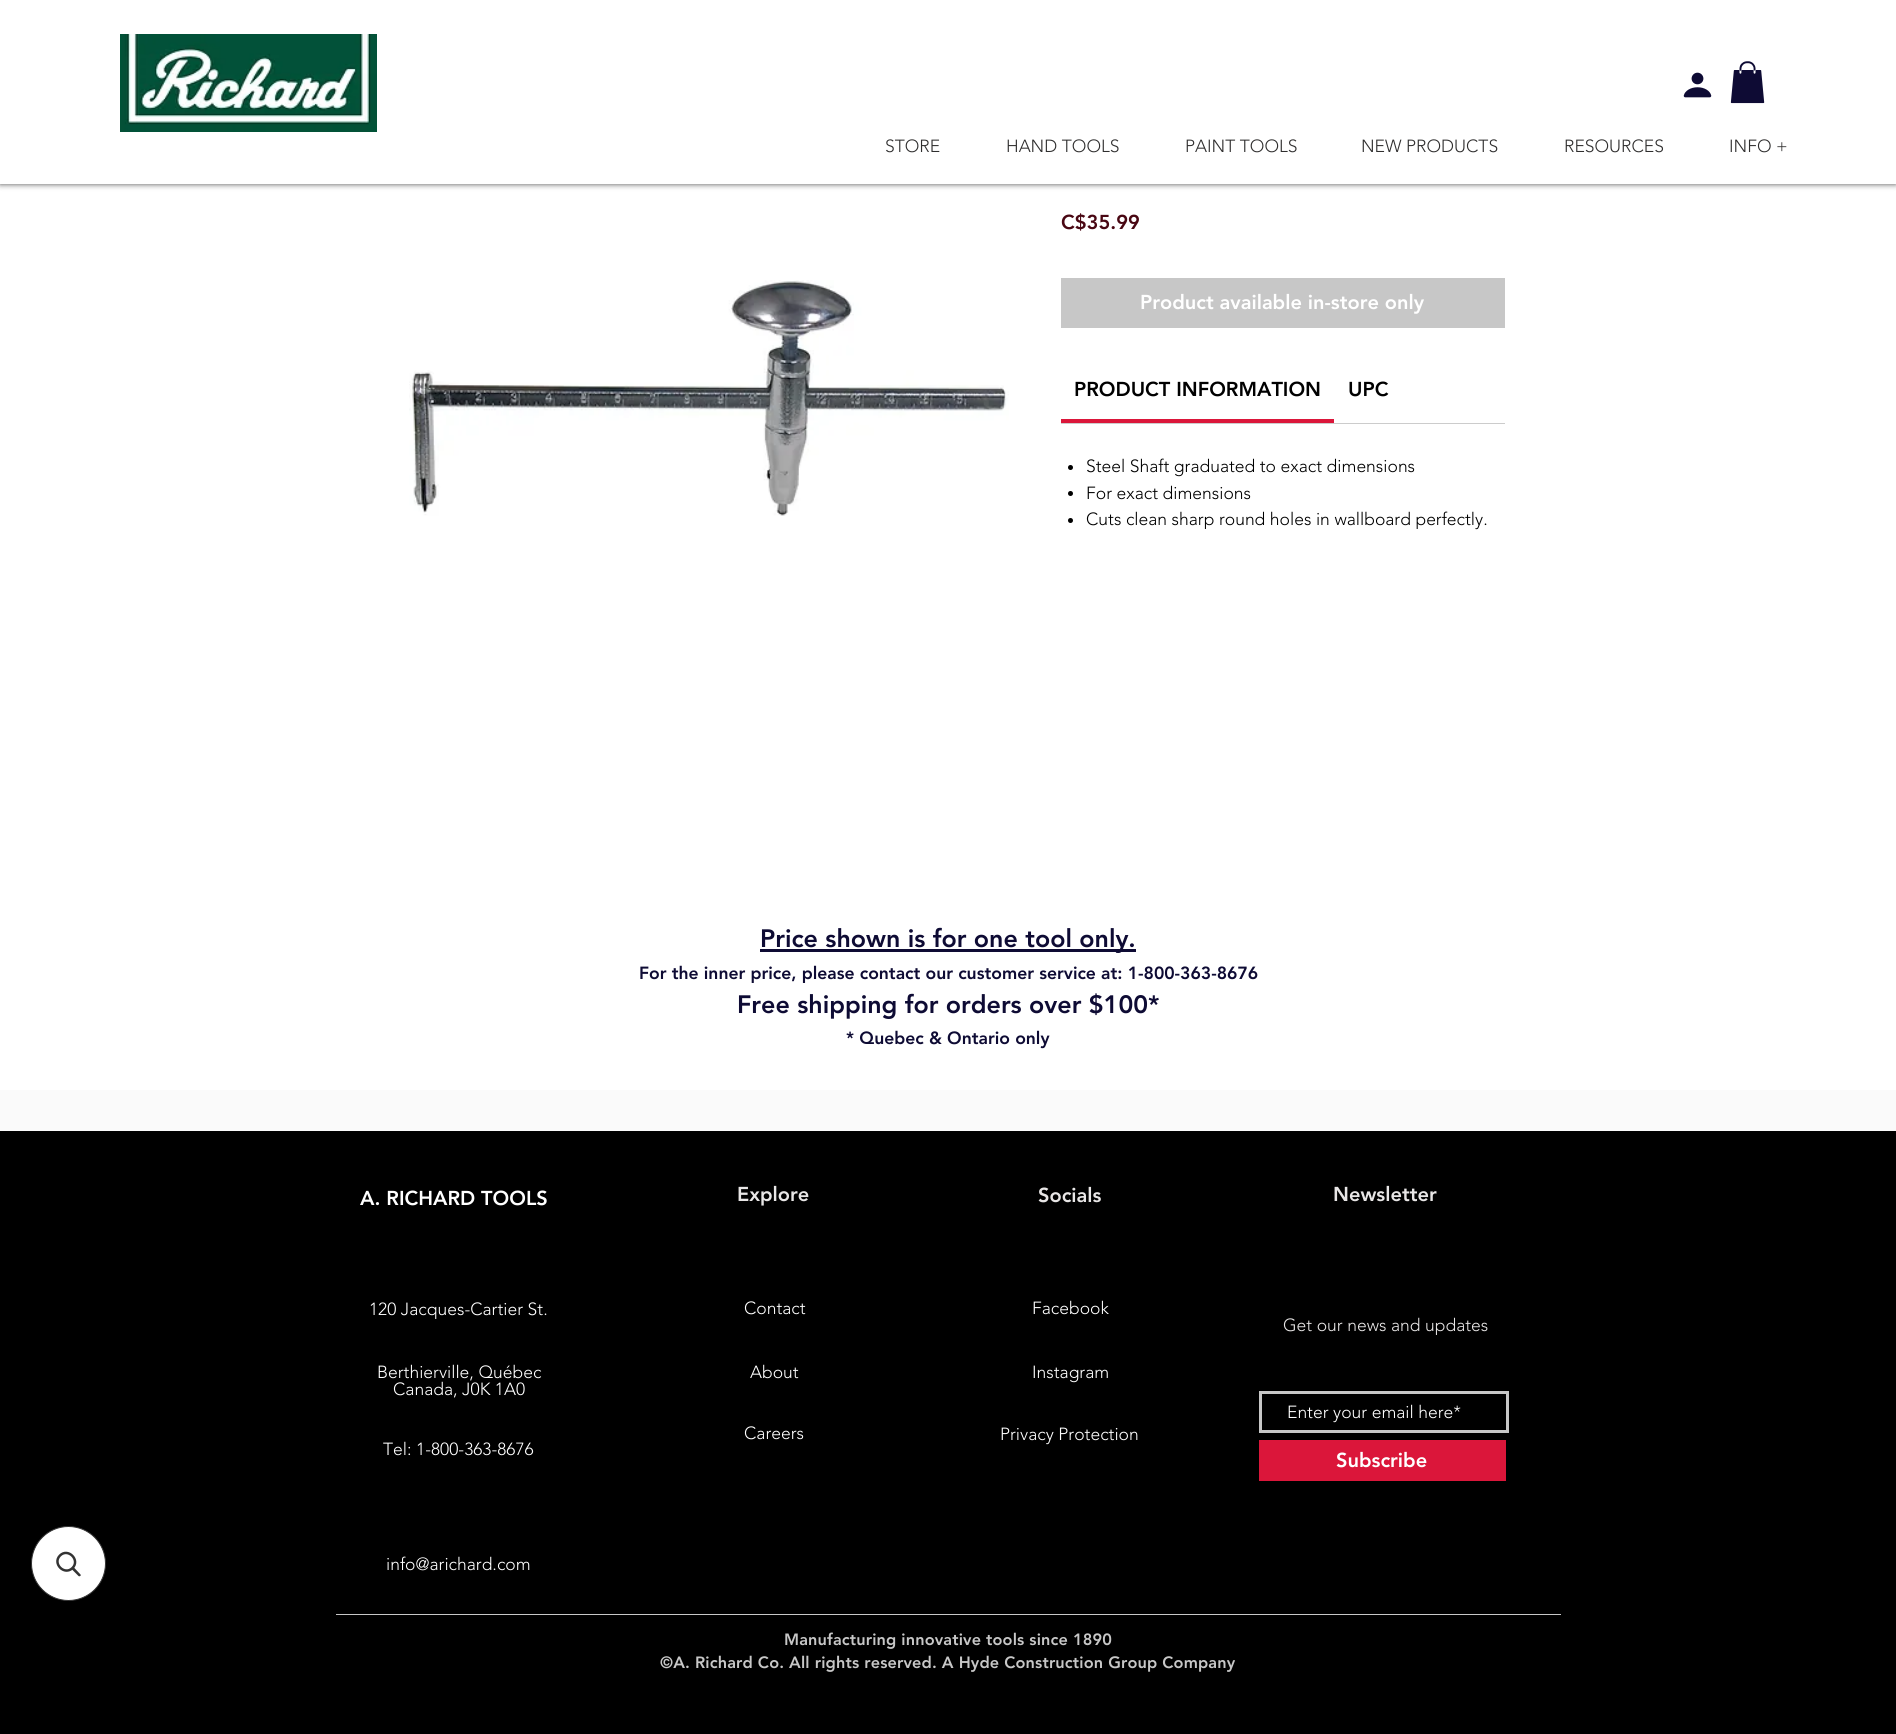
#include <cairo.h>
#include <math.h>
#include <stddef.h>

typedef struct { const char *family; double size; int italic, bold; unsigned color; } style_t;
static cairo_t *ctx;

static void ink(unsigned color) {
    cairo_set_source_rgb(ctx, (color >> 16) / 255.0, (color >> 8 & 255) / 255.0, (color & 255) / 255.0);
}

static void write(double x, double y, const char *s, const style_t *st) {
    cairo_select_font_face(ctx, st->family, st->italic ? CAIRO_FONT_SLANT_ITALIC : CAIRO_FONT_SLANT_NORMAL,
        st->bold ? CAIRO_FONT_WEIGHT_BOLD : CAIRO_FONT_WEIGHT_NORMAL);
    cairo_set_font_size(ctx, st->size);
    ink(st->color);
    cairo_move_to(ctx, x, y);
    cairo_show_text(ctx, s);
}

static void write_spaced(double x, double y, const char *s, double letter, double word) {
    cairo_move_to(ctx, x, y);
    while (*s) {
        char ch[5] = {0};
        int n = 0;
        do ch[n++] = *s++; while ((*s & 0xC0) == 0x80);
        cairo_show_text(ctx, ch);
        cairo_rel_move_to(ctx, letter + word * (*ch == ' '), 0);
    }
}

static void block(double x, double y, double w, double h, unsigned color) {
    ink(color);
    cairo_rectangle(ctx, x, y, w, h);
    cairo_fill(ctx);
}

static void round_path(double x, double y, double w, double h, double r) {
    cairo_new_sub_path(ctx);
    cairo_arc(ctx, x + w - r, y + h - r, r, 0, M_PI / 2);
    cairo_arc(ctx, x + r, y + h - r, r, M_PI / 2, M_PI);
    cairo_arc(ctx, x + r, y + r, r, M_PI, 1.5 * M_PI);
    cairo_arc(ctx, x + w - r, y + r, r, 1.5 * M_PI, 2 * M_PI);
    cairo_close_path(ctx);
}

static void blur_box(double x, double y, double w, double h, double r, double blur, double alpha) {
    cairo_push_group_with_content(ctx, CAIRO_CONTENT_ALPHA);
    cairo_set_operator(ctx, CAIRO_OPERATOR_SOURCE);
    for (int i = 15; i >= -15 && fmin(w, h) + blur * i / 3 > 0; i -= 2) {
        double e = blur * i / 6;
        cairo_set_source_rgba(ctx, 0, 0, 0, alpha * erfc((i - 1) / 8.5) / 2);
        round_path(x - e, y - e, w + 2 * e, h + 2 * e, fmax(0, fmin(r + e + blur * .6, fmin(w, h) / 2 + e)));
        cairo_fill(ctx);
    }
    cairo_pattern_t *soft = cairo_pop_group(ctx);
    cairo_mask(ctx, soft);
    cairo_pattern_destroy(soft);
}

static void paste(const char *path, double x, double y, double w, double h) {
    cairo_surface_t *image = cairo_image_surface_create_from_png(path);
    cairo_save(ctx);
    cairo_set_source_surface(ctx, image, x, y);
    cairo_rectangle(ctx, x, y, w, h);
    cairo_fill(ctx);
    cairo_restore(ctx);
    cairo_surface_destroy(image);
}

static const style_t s1 = {"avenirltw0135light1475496 Light", 17.5, 0, 0, 0x2f2e2e};
static const style_t s2 = {"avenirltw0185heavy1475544 Black", 20, 0, 0, 0x490713};
static const style_t s3 = {"avenirltw0185heavy1475544 Black", 20, 0, 0, 0xffffff};
static const style_t s4 = {"avenirltw0185heavy1475544 Black", 20, 0, 0, 0x000000};
static const style_t s5 = {"avenirltw0135light1475496 Light", 17.5, 0, 0, 0x000000};
static const style_t s6 = {"avenirltw0185heavy1475544 Black", 25, 0, 0, 0x0e0b34};
static const style_t s7 = {"avenirltw0185heavy1475544 Black", 17.5, 0, 0, 0x0e0b34};
static const style_t s8 = {"avenirltw0185heavy1475544 Black", 20, 0, 0, 0xe8e6e6};
static const style_t s9 = {"avenirltw0135light1475496 Light", 17.5, 0, 0, 0xffffff};
static const style_t s10 = {"avenirltw0135light1475496 Light", 17.5, 0, 0, 0xe8e6e6};

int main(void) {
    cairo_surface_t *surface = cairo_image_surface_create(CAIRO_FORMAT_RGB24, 1896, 1734);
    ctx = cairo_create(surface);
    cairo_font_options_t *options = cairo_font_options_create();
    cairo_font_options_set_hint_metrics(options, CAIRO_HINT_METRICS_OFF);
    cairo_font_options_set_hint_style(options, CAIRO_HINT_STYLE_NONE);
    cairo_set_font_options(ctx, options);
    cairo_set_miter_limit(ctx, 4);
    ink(0xffffff);
    cairo_paint(ctx);
    block(0, 1131, 1896, 603, 0x000000);
    ink(0xffffff);
    cairo_arc(ctx, 68.5, 1563.5, 37, 0, 2 * M_PI);
    cairo_fill_preserve(ctx);
    ink(0x333333);
    cairo_set_line_width(ctx, 1);
    cairo_stroke(ctx);
    cairo_new_path(ctx);
    cairo_move_to(ctx, 60, 1555.5);
    cairo_curve_to(ctx, 68, 1547.5, 80.5, 1560, 72.5, 1568);
    cairo_curve_to(ctx, 64.5, 1576, 52, 1563.5, 60, 1555.5);
    cairo_close_path(ctx);
    cairo_set_line_width(ctx, 2.5);
    cairo_stroke(ctx);
    cairo_new_path(ctx);
    cairo_move_to(ctx, 71.5, 1569);
    cairo_line_to(ctx, 73.5, 1567);
    cairo_line_to(ctx, 80.5, 1574.5);
    cairo_curve_to(ctx, 81.5, 1575.5, 79.5, 1577, 78.5, 1576);
    cairo_close_path(ctx);
    cairo_fill(ctx);
    ink(0x000000);
    blur_box(0, 0, 1896, 184, 0, 3, 0.7);
    block(0, 0, 1896, 184, 0xffffff);
    paste("pic1.png", 120, 34, 257, 98);
    paste("pic2.png", 1683, 72, 29, 26);
    paste("pic3.png", 1730, 61, 35, 43);
    write(885, 152, "STORE", &s1);
    write(1006, 152, "HAND TOOLS", &s1);
    write(1185, 152, "PAINT TOOLS", &s1);
    write(1361, 152, "NEW PRODUCTS", &s1);
    write(1564, 152, "RESOURCES", &s1);
    write(1729, 152, "INFO +", &s1);
    paste("pic4.png", 409, 280, 600, 236);
    write(1061, 229, "C$35.99", &s2);
    block(1061, 278, 444, 50, 0xc7c7c7);
    write(1140, 309, "Product available in-store only", &s3);
    block(1061, 423, 444, 1, 0xcccccc);
    block(1061, 419, 273, 4, 0xdb163a);
    write(1074, 396, "PRODUCT INFORMATION", &s4);
    write(1348, 396, "UPC", &s4);
    cairo_new_path(ctx);
    cairo_arc(ctx, 1070.5, 467.5, 2.5, 0, 2 * M_PI);
    cairo_fill(ctx);
    write(1086, 472, "Steel Shaft graduated to exact dimensions", &s5);
    cairo_new_path(ctx);
    cairo_arc(ctx, 1070.5, 493.5, 2.5, 0, 2 * M_PI);
    cairo_fill(ctx);
    write(1086, 499, "For exact dimensions", &s5);
    cairo_new_path(ctx);
    cairo_arc(ctx, 1070.5, 520.5, 2.5, 0, 2 * M_PI);
    cairo_fill(ctx);
    write(1086, 525, "Cuts clean sharp round holes in wallboard perfectly.", &s5);
    block(760, 949, 376, 3, 0x0e0b34);
    write(760, 947, "Price shown is for one tool only.", &s6);
    write(639, 979, "For the inner price, please contact our customer service at: 1-800-363-8676", &s7);
    write(737, 1013, "Free shipping for orders over $100*", &s6);
    write(846, 1044, "* Quebec & Ontario only", &s7);
    block(0, 1090, 1896, 41, 0xfafafa);
    write(360, 1205, "A. RICHARD TOOLS", &s3);
    write(737, 1201, "Explore", &s8);
    write(1038, 1202, "Socials", &s8);
    write(1333, 1201, "Newsletter", &s8);
    write(369, 1315, "120 Jacques-Cartier St.", &s9);
    write(744, 1314, "Contact", &s9);
    write(1032, 1314, "Facebook", &s9);
    write(377, 1378, "Berthierville, Québec", &s9);
    write(393, 1395, "Canada, J0K 1A0", &s9);
    write(750, 1378, "About", &s9);
    write(1032, 1378, "Instagram", &s9);
    write(1283, 1331, "Get our news and updates", &s10);
    cairo_rectangle(ctx, 1260.5, 1392.5, 247, 39);
    ink(0xc7c7c7);
    cairo_set_line_width(ctx, 3);
    cairo_stroke(ctx);
    write(1287, 1418, "Enter your email here*", &s9);
    block(1259, 1440, 247, 41, 0xdb163a);
    write(1336, 1467, "Subscribe", &s3);
    write(744, 1439, "Careers", &s9);
    write(1000, 1440, "Privacy Protection", &s9);
    write(383, 1455, "Tel: 1-800-363-8676", &s9);
    write(386, 1570, "info@arichard.com", &s9);
    block(336, 1614, 1225, 1, 0xc7c7c7);
    cairo_select_font_face(ctx, "avenirltw0185heavy1475544 Black", CAIRO_FONT_SLANT_NORMAL, CAIRO_FONT_WEIGHT_NORMAL);
    cairo_set_font_size(ctx, 16.25);
    write_spaced(784, 1645, "Manufacturing innovative tools since 1890", 0.15, 0);
    write_spaced(660, 1668, "©A. Richard Co. All rights reserved. A Hyde Construction Group Company", 0.15, 0);
    cairo_surface_write_to_png(surface, "screenshot.png");
    cairo_font_options_destroy(options);
    cairo_destroy(ctx);
    cairo_surface_destroy(surface);
    return 0;
}
